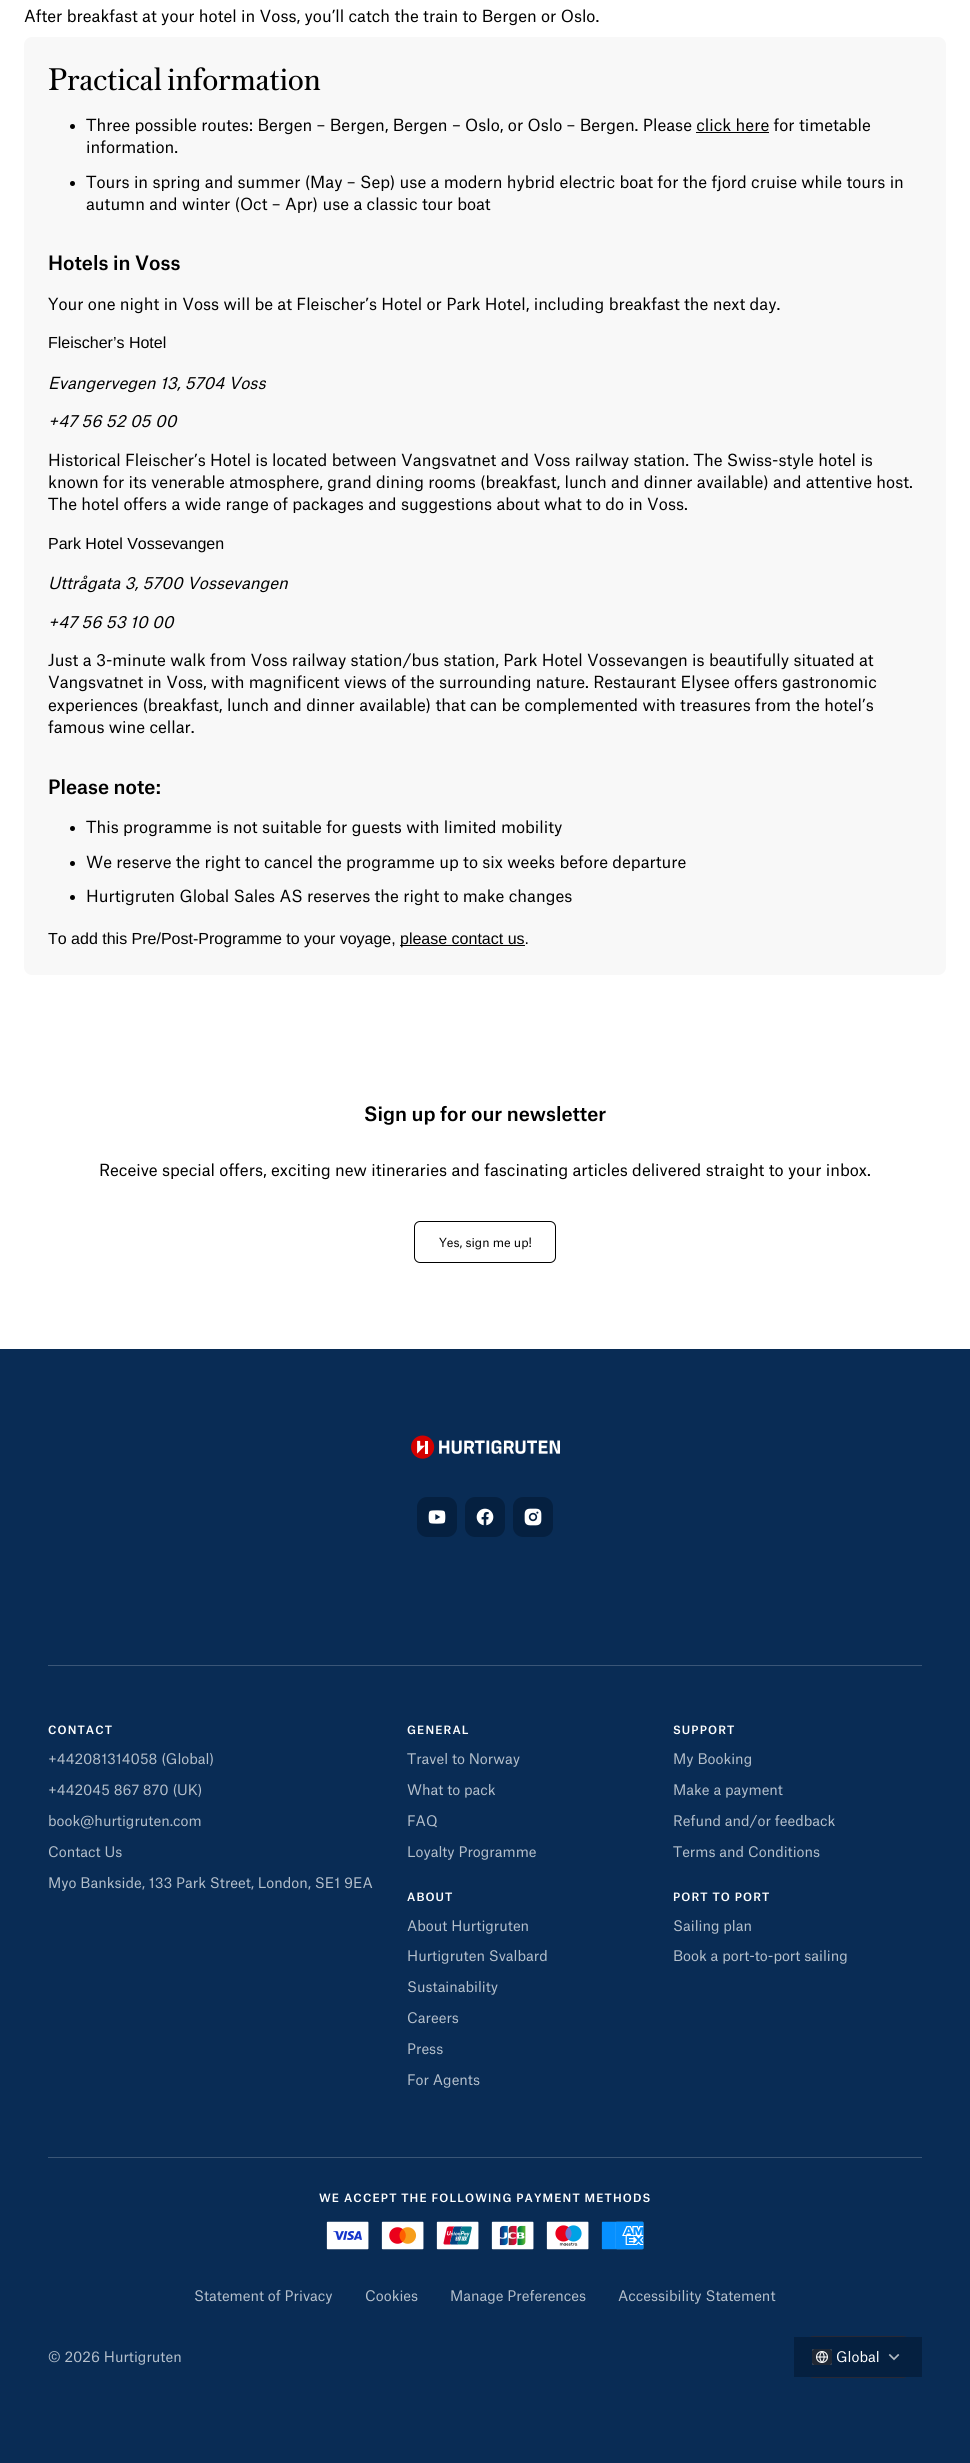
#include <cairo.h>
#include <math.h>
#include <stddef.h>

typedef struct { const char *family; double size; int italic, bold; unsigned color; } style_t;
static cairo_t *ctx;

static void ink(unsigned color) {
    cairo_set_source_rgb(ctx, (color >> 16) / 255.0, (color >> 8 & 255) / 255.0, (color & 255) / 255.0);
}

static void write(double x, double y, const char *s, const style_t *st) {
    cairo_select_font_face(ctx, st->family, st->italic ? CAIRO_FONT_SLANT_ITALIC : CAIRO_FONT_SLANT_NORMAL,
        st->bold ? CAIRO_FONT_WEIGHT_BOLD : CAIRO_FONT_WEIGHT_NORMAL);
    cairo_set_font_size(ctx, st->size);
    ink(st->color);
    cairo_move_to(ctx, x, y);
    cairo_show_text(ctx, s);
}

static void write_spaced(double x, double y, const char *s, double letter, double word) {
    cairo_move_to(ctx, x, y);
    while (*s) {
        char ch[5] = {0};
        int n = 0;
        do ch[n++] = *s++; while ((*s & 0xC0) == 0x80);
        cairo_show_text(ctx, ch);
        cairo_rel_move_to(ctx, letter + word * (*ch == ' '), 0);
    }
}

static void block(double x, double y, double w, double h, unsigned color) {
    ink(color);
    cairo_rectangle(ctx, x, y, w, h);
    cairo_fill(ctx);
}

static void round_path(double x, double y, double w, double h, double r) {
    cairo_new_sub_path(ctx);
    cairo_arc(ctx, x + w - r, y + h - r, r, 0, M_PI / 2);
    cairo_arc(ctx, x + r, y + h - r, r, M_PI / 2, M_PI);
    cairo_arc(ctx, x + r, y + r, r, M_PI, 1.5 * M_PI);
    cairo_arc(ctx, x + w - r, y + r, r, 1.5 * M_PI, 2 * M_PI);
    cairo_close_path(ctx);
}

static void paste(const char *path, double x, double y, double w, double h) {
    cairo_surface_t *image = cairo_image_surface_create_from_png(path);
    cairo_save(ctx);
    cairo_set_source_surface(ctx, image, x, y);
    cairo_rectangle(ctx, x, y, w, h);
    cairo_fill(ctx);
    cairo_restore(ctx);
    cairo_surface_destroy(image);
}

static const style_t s1 = {"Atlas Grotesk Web", 16, 0, 0, 0x000000};
static const style_t s2 = {"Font", 33, 0, 0, 0x000000};
static const style_t s3 = {"Atlas Grotesk Web Medium", 19, 0, 0, 0x000000};
static const style_t s4 = {"Liberation Sans", 16, 0, 0, 0x000000};
static const style_t s5 = {"Atlas Grotesk Web", 16, 1, 0, 0x000000};
static const style_t s6 = {"Atlas Grotesk Web", 12, 0, 0, 0x000000};
static const style_t s7 = {"Atlas Grotesk Web", 14, 0, 0, 0xb5c0cc};
static const style_t s8 = {"Atlas Grotesk Web", 14, 0, 0, 0xffffff};

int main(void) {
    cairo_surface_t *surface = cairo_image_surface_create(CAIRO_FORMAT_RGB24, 970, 2463);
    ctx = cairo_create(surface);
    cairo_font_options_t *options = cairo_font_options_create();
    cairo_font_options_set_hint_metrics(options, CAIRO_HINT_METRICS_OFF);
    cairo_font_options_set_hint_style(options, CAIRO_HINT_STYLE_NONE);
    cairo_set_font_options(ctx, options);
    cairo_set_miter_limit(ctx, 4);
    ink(0xffffff);
    cairo_paint(ctx);
    write(24, 22, "After breakfast at your hotel in Voss, you’ll catch the train to Bergen or Oslo.", &s1);
    ink(0xf8f8f8);
    round_path(24, 37, 922, 938, 8);
    cairo_fill(ctx);
    write(48, 90, "Practical information", &s2);
    cairo_new_path(ctx);
    cairo_arc(ctx, 72.5, 126.5, 2.5, 0, 2 * M_PI);
    cairo_fill(ctx);
    write(86, 131, "Three possible routes: Bergen – Bergen, Bergen – Oslo, or Oslo – Bergen. Please click here for timetable", &s1);
    block(696, 132, 73, 1, 0x000000);
    write(86, 153, "information.", &s1);
    cairo_new_path(ctx);
    cairo_arc(ctx, 72.5, 183.5, 2.5, 0, 2 * M_PI);
    cairo_fill(ctx);
    write(86, 188, "Tours in spring and summer (May – Sep) use a modern hybrid electric boat for the fjord cruise while tours in", &s1);
    write(86, 210, "autumn and winter (Oct – Apr) use a classic tour boat", &s1);
    write(48, 270, "Hotels in Voss", &s3);
    write(48, 310, "Your one night in Voss will be at Fleischer’s Hotel or Park Hotel, including breakfast the next day.", &s1);
    write(48, 348, "Fleischer’s Hotel", &s4);
    write(48, 389, "Evangervegen 13, 5704 Voss", &s5);
    write(48, 427, "+47 56 52 05 00", &s5);
    write(48, 466, "Historical Fleischer’s Hotel is located between Vangsvatnet and Voss railway station. The Swiss-style hotel is", &s1);
    write(48, 488, "known for its venerable atmosphere, grand dining rooms (breakfast, lunch and dinner available) and attentive host.", &s1);
    write(48, 510, "The hotel offers a wide range of packages and suggestions about what to do in Voss.", &s1);
    write(48, 549, "Park Hotel Vossevangen", &s4);
    write(48, 589, "Uttrågata 3, 5700 Vossevangen", &s5);
    write(48, 628, "+47 56 53 10 00", &s5);
    write(48, 666, "Just a 3-minute walk from Voss railway station/bus station, Park Hotel Vossevangen is beautifully situated at", &s1);
    write(48, 688, "Vangsvatnet in Voss, with magnificent views of the surrounding nature. Restaurant Elysee offers gastronomic", &s1);
    write(48, 711, "experiences (breakfast, lunch and dinner available) that can be complemented with treasures from the hotel’s", &s1);
    write(48, 733, "famous wine cellar.", &s1);
    write(48, 794, "Please note:", &s3);
    cairo_new_path(ctx);
    cairo_arc(ctx, 72.5, 828.5, 2.5, 0, 2 * M_PI);
    cairo_fill(ctx);
    write(86, 833, "This programme is not suitable for guests with limited mobility", &s1);
    cairo_new_path(ctx);
    cairo_arc(ctx, 72.5, 863.5, 2.5, 0, 2 * M_PI);
    cairo_fill(ctx);
    write(86, 868, "We reserve the right to cancel the programme up to six weeks before departure", &s1);
    cairo_new_path(ctx);
    cairo_arc(ctx, 72.5, 897.5, 2.5, 0, 2 * M_PI);
    cairo_fill(ctx);
    write(86, 902, "Hurtigruten Global Sales AS reserves the right to make changes", &s1);
    write(48, 944, "To add this Pre/Post-Programme to your voyage,", &s4);
    block(400, 945, 125, 1, 0x000000);
    write(400, 944, "please contact us.", &s4);
    write(364, 1121, "Sign up for our newsletter", &s3);
    write(99, 1176, "Receive special offers, exciting new itineraries and fascinating articles delivered straight to your inbox.", &s1);
    round_path(414.5, 1221.5, 141, 41, 5.5);
    cairo_set_line_width(ctx, 1);
    cairo_stroke(ctx);
    write(439, 1247, "Yes, sign me up!", &s6);
    block(0, 1349, 970, 1114, 0x092c55);
    paste("pic1.png", 411, 1435, 149, 24);
    ink(0x052040);
    round_path(417, 1497, 40, 40, 10);
    cairo_fill(ctx);
    paste("pic2.png", 428, 1510, 18, 14);
    round_path(465, 1497, 40, 40, 10);
    cairo_fill(ctx);
    paste("pic3.png", 476, 1508, 18, 18);
    round_path(513, 1497, 40, 40, 10);
    cairo_fill(ctx);
    paste("pic4.png", 524, 1508, 18, 18);
    block(48, 1665, 874, 1, 0x3a5677);
    block(48, 2157, 874, 1, 0x3a5677);
    cairo_select_font_face(ctx, "Atlas Grotesk Web Medium", CAIRO_FONT_SLANT_NORMAL, CAIRO_FONT_WEIGHT_NORMAL);
    cairo_set_font_size(ctx, 11);
    ink(0xffffff);
    write_spaced(48, 1734, "CONTACT", 1.1, 0);
    write(48, 1764, "+442081314058 (Global)", &s7);
    write(48, 1795, "+442045 867 870 (UK)", &s7);
    write(48, 1826, "book@hurtigruten.com", &s7);
    write(48, 1857, "Contact Us", &s7);
    write(48, 1888, "Myo Bankside, 133 Park Street, London, SE1 9EA", &s7);
    cairo_select_font_face(ctx, "Atlas Grotesk Web Medium", CAIRO_FONT_SLANT_NORMAL, CAIRO_FONT_WEIGHT_NORMAL);
    cairo_set_font_size(ctx, 11);
    ink(0xffffff);
    write_spaced(407, 1734, "GENERAL", 1.1, 0);
    write(407, 1764, "Travel to Norway", &s7);
    write(407, 1795, "What to pack", &s7);
    write(407, 1826, "FAQ", &s7);
    write(407, 1857, "Loyalty Programme", &s7);
    cairo_select_font_face(ctx, "Atlas Grotesk Web Medium", CAIRO_FONT_SLANT_NORMAL, CAIRO_FONT_WEIGHT_NORMAL);
    cairo_set_font_size(ctx, 11);
    ink(0xffffff);
    write_spaced(673, 1734, "SUPPORT", 1.1, 0);
    write(673, 1764, "My Booking", &s7);
    write(673, 1795, "Make a payment", &s7);
    write(673, 1826, "Refund and/or feedback", &s7);
    write(673, 1857, "Terms and Conditions", &s7);
    cairo_select_font_face(ctx, "Atlas Grotesk Web Medium", CAIRO_FONT_SLANT_NORMAL, CAIRO_FONT_WEIGHT_NORMAL);
    cairo_set_font_size(ctx, 11);
    ink(0xffffff);
    write_spaced(407, 1901, "ABOUT", 1.1, 0);
    write(407, 1931, "About Hurtigruten", &s7);
    write(407, 1961, "Hurtigruten Svalbard", &s7);
    write(407, 1992, "Sustainability", &s7);
    write(407, 2023, "Careers", &s7);
    write(407, 2054, "Press", &s7);
    write(407, 2085, "For Agents", &s7);
    cairo_select_font_face(ctx, "Atlas Grotesk Web Medium", CAIRO_FONT_SLANT_NORMAL, CAIRO_FONT_WEIGHT_NORMAL);
    cairo_set_font_size(ctx, 11);
    ink(0xffffff);
    write_spaced(673, 1901, "PORT TO PORT", 1.1, 0);
    write(673, 1931, "Sailing plan", &s7);
    write(673, 1961, "Book a port-to-port sailing", &s7);
    cairo_select_font_face(ctx, "Atlas Grotesk Web Medium", CAIRO_FONT_SLANT_NORMAL, CAIRO_FONT_WEIGHT_NORMAL);
    cairo_set_font_size(ctx, 11);
    ink(0xffffff);
    write_spaced(319, 2202, "WE ACCEPT THE FOLLOWING PAYMENT METHODS", 1.1, 0);
    paste("pic5.png", 326, 2221, 43, 29);
    paste("pic6.png", 381, 2221, 43, 29);
    paste("pic7.png", 436, 2221, 43, 29);
    paste("pic8.png", 491, 2221, 43, 29);
    paste("pic9.png", 546, 2221, 43, 29);
    paste("pic10.png", 601, 2221, 43, 29);
    write(194, 2301, "Statement of Privacy", &s7);
    write(365, 2301, "Cookies", &s7);
    write(450, 2301, "Manage Preferences", &s7);
    write(618, 2301, "Accessibility Statement", &s7);
    write(48, 2362, "© 2026 Hurtigruten", &s7);
    round_path(803.5, 2336.5, 109, 41, 10.5);
    ink(0x272835);
    cairo_stroke(ctx);
    block(794, 2337, 128, 40, 0x052040);
    paste("pic11.png", 812, 2349, 20, 16);
    write(836, 2362, "Global", &s8);
    paste("pic12.png", 888, 2354, 12, 7);
    cairo_surface_write_to_png(surface, "screenshot.png");
    cairo_font_options_destroy(options);
    cairo_destroy(ctx);
    cairo_surface_destroy(surface);
    return 0;
}
